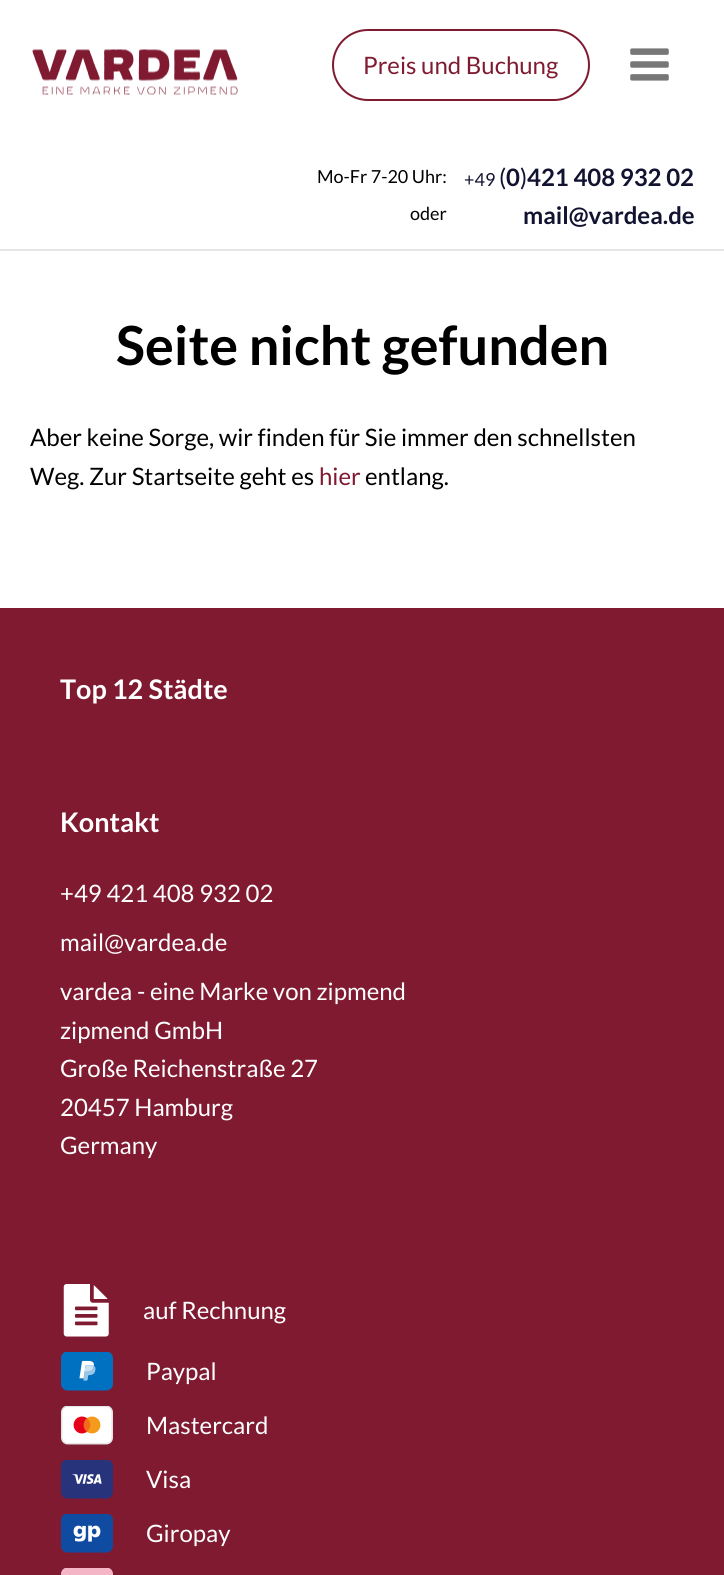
#include <cairo.h>
#include <math.h>
#include <stddef.h>

typedef struct { const char *family; double size; int italic, bold; unsigned color; } style_t;
static cairo_t *ctx;

static void ink(unsigned color) {
    cairo_set_source_rgb(ctx, (color >> 16) / 255.0, (color >> 8 & 255) / 255.0, (color & 255) / 255.0);
}

static void write(double x, double y, const char *s, const style_t *st) {
    cairo_select_font_face(ctx, st->family, st->italic ? CAIRO_FONT_SLANT_ITALIC : CAIRO_FONT_SLANT_NORMAL,
        st->bold ? CAIRO_FONT_WEIGHT_BOLD : CAIRO_FONT_WEIGHT_NORMAL);
    cairo_set_font_size(ctx, st->size);
    ink(st->color);
    cairo_move_to(ctx, x, y);
    cairo_show_text(ctx, s);
}

static void block(double x, double y, double w, double h, unsigned color) {
    ink(color);
    cairo_rectangle(ctx, x, y, w, h);
    cairo_fill(ctx);
}

static void round_path(double x, double y, double w, double h, double r) {
    cairo_new_sub_path(ctx);
    cairo_arc(ctx, x + w - r, y + h - r, r, 0, M_PI / 2);
    cairo_arc(ctx, x + r, y + h - r, r, M_PI / 2, M_PI);
    cairo_arc(ctx, x + r, y + r, r, M_PI, 1.5 * M_PI);
    cairo_arc(ctx, x + w - r, y + r, r, 1.5 * M_PI, 2 * M_PI);
    cairo_close_path(ctx);
}

static void paste(const char *path, double x, double y, double w, double h) {
    cairo_surface_t *image = cairo_image_surface_create_from_png(path);
    cairo_save(ctx);
    cairo_set_source_surface(ctx, image, x, y);
    cairo_rectangle(ctx, x, y, w, h);
    cairo_fill(ctx);
    cairo_restore(ctx);
    cairo_surface_destroy(image);
}

static const style_t s1 = {"Lato", 24, 0, 0, 0x7f1a31};
static const style_t s2 = {"Lato", 18, 0, 0, 0x000000};
static const style_t s3 = {"Lato", 18, 0, 0, 0x121231};
static const style_t s4 = {"Lato", 24, 0, 0, 0x121231};
static const style_t s5 = {"Lato", 24, 0, 1, 0x121231};
static const style_t s6 = {"Lato", 54, 0, 1, 0x000000};
static const style_t s7 = {"Lato", 24, 0, 0, 0x000000};
static const style_t s8 = {"Lato", 27, 0, 1, 0xffffff};
static const style_t s9 = {"Lato", 24, 0, 0, 0xffffff};

int main(void) {
    cairo_surface_t *surface = cairo_image_surface_create(CAIRO_FORMAT_RGB24, 724, 1575);
    ctx = cairo_create(surface);
    cairo_font_options_t *options = cairo_font_options_create();
    cairo_font_options_set_hint_metrics(options, CAIRO_HINT_METRICS_OFF);
    cairo_font_options_set_hint_style(options, CAIRO_HINT_STYLE_NONE);
    cairo_set_font_options(ctx, options);
    cairo_set_miter_limit(ctx, 4);
    ink(0xffffff);
    cairo_paint(ctx);
    paste("pic1.png", 32, 49, 206, 46);
    round_path(333, 30, 256, 70, 35);
    ink(0x7f1a31);
    cairo_stroke(ctx);
    write(363, 74, "Preis und Buchung", &s1);
    paste("pic2.png", 630, 48, 39, 33);
    block(0, 249, 724, 2, 0xe5e5e5);
    write(317, 183, "Mo-Fr 7-20 Uhr:", &s2);
    write(410, 220, "oder", &s2);
    write(464, 186, "+49", &s3);
    write(499, 186, "(", &s4);
    write(506, 186, "0", &s5);
    write(520, 186, ")", &s4);
    write(527, 186, "421 408 932 02", &s5);
    write(523, 224, "mail@vardea.de", &s5);
    write(116, 365, "Seite nicht gefunden", &s6);
    write(30, 446, "Aber keine Sorge, wir finden für Sie immer den schnellsten", &s7);
    write(30, 485, "Weg. Zur Startseite geht es", &s7);
    write(319, 485, "hier", &s1);
    write(365, 485, "entlang.", &s7);
    block(0, 608, 724, 967, 0x7f1a31);
    write(60, 699, "Top 12 Städte", &s8);
    write(60, 832, "Kontakt", &s8);
    write(60, 902, "+49 421 408 932 02", &s9);
    write(60, 951, "mail@vardea.de", &s9);
    write(60, 1000, "vardea - eine Marke von zipmend", &s9);
    write(60, 1039, "zipmend GmbH", &s9);
    write(60, 1077, "Große Reichenstraße 27", &s9);
    write(60, 1116, "20457 Hamburg", &s9);
    write(60, 1154, "Germany", &s9);
    paste("pic3.png", 63, 1284, 46, 53);
    write(143, 1319, "auf Rechnung", &s9);
    paste("pic4.png", 61, 1352, 52, 39);
    write(146, 1380, "Paypal", &s9);
    paste("pic5.png", 61, 1406, 52, 39);
    write(146, 1434, "Mastercard", &s9);
    paste("pic6.png", 61, 1460, 52, 39);
    write(146, 1488, "Visa", &s9);
    paste("pic7.png", 61, 1514, 52, 39);
    write(146, 1542, "Giropay", &s9);
    paste("pic8.png", 61, 1568, 52, 7);
    cairo_surface_write_to_png(surface, "screenshot.png");
    cairo_font_options_destroy(options);
    cairo_destroy(ctx);
    cairo_surface_destroy(surface);
    return 0;
}
